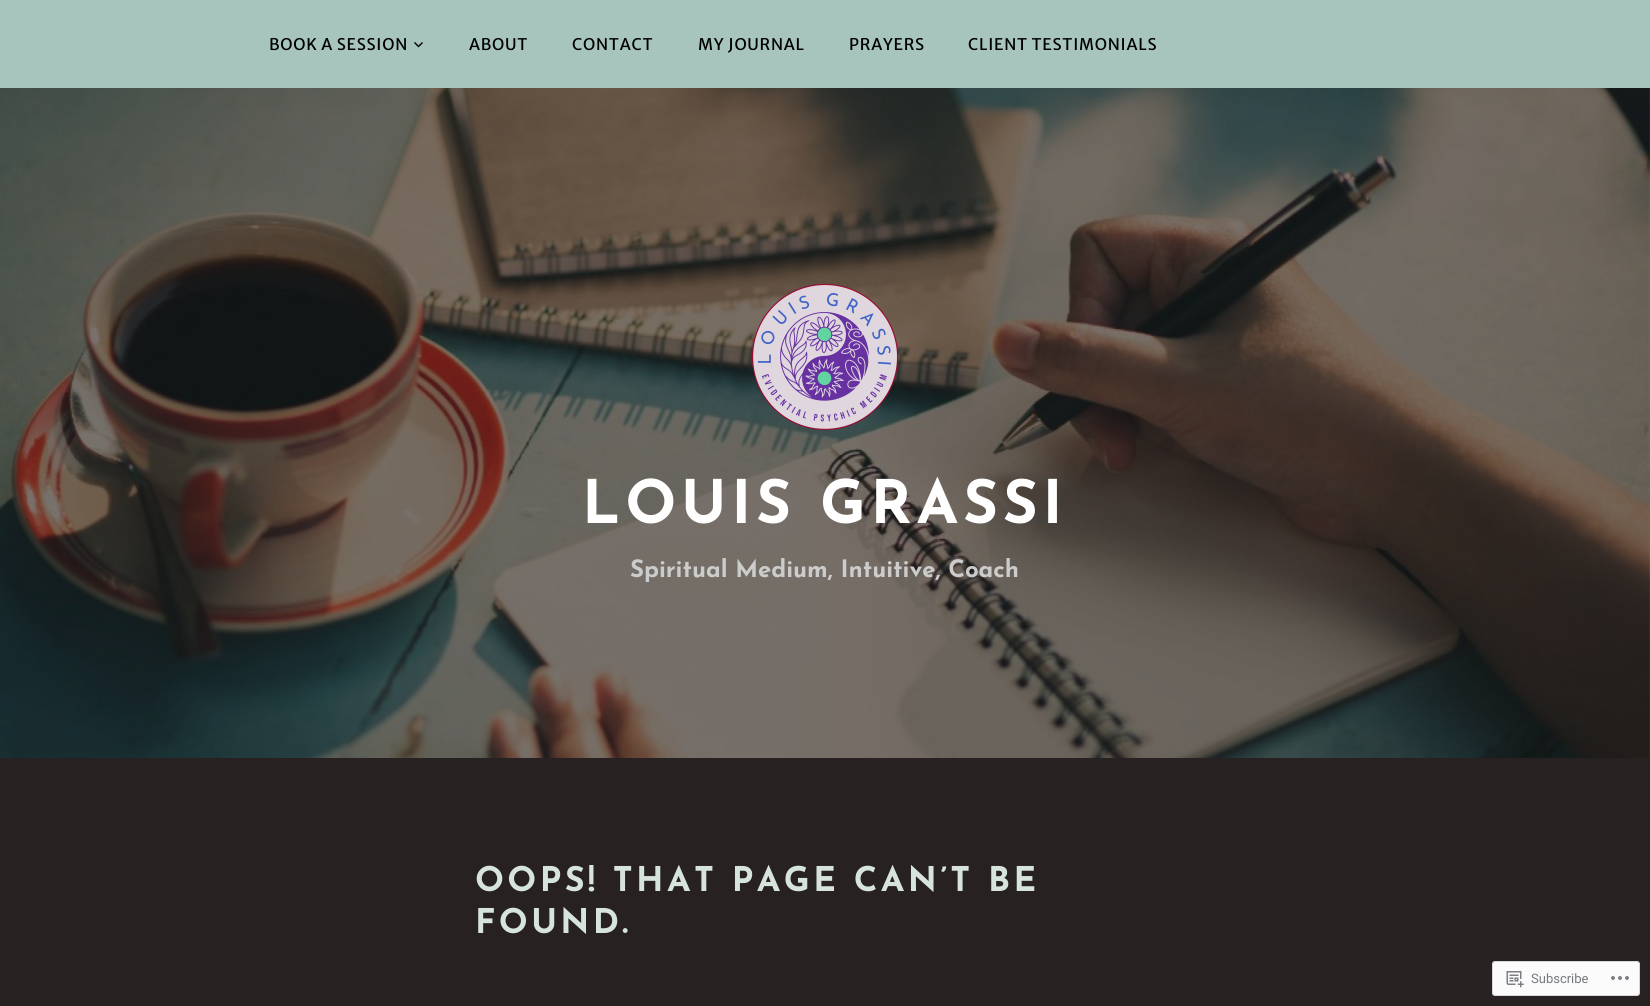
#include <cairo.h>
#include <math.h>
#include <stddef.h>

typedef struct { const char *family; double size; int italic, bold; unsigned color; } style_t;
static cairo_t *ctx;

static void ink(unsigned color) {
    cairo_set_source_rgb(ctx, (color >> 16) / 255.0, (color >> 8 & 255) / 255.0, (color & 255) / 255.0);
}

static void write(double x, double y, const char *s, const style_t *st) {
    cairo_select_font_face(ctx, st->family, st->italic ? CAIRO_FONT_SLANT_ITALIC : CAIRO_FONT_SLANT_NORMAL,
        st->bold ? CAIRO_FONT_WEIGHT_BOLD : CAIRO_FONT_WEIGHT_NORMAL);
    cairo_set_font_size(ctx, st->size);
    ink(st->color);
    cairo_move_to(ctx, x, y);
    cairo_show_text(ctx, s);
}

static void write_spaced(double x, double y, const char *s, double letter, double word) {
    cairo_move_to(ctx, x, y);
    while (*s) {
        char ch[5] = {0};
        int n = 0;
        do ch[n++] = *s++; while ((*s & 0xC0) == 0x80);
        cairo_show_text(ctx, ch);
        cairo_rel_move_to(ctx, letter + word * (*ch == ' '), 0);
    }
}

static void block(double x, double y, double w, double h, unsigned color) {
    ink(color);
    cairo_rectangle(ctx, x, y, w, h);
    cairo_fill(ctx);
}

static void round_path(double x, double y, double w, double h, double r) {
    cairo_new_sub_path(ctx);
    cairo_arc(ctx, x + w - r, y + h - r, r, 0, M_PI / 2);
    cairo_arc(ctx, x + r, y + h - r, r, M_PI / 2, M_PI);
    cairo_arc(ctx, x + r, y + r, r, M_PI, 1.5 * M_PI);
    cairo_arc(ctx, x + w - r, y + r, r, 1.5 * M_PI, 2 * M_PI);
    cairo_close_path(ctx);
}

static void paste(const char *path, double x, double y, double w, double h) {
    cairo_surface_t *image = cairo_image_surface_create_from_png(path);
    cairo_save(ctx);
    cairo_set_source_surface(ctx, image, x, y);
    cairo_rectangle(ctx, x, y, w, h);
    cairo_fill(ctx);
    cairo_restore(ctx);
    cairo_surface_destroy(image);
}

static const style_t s1 = {"Josefin Sans Thin", 24, 0, 0, 0xcccccc};
static const style_t s2 = {"Roboto", 13, 0, 0, 0x767a80};

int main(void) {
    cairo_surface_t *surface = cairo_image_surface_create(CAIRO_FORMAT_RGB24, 1650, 1006);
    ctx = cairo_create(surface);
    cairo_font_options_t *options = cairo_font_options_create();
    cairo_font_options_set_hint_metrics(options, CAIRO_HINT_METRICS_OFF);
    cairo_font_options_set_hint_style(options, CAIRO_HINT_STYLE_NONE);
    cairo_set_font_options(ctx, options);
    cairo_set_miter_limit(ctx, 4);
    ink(0x272122);
    cairo_paint(ctx);
    block(0, 0, 1650, 758, 0xa7c5bd);
    cairo_select_font_face(ctx, "Merriweather Sans", CAIRO_FONT_SLANT_NORMAL, CAIRO_FONT_WEIGHT_NORMAL);
    cairo_set_font_size(ctx, 16);
    ink(0x000000);
    write_spaced(269, 50, "BOOK A SESSION", 0.75, 0);
    paste("pic1.png", 414, 42, 9, 6);
    write_spaced(469, 50, "ABOUT", 0.75, 0);
    write_spaced(572, 50, "CONTACT", 0.75, 0);
    write_spaced(698, 50, "MY JOURNAL", 0.75, 0);
    write_spaced(849, 50, "PRAYERS", 0.75, 0);
    write_spaced(968, 50, "CLIENT TESTIMONIALS", 0.75, 0);
    paste("pic2.png", 0, 88, 1650, 670);
    paste("pic3.png", 752, 283, 147, 147);
    cairo_select_font_face(ctx, "Josefin Sans Thin", CAIRO_FONT_SLANT_NORMAL, CAIRO_FONT_WEIGHT_NORMAL);
    cairo_set_font_size(ctx, 60);
    ink(0xffffff);
    write_spaced(582, 523, "LOUIS GRASSI", 4.75, 0);
    write(630, 577, "Spiritual Medium, Intuitive, Coach", &s1);
    cairo_set_font_size(ctx, 34);
    ink(0xd7e4de);
    write_spaced(475, 891, "OOPS! THAT PAGE CAN’T BE", 3.4, 0);
    write_spaced(475, 933, "FOUND.", 3.4, 0);
    ink(0xfbfbfb);
    round_path(1492.5, 961.5, 147, 34, 2.5);
    cairo_fill_preserve(ctx);
    ink(0xd8d8da);
    cairo_set_line_width(ctx, 1);
    cairo_stroke(ctx);
    paste("pic4.png", 1506, 971, 18, 17);
    write(1531, 983, "Subscribe", &s2);
    paste("pic5.png", 1611, 976, 18, 4);
    cairo_surface_write_to_png(surface, "screenshot.png");
    cairo_font_options_destroy(options);
    cairo_destroy(ctx);
    cairo_surface_destroy(surface);
    return 0;
}
